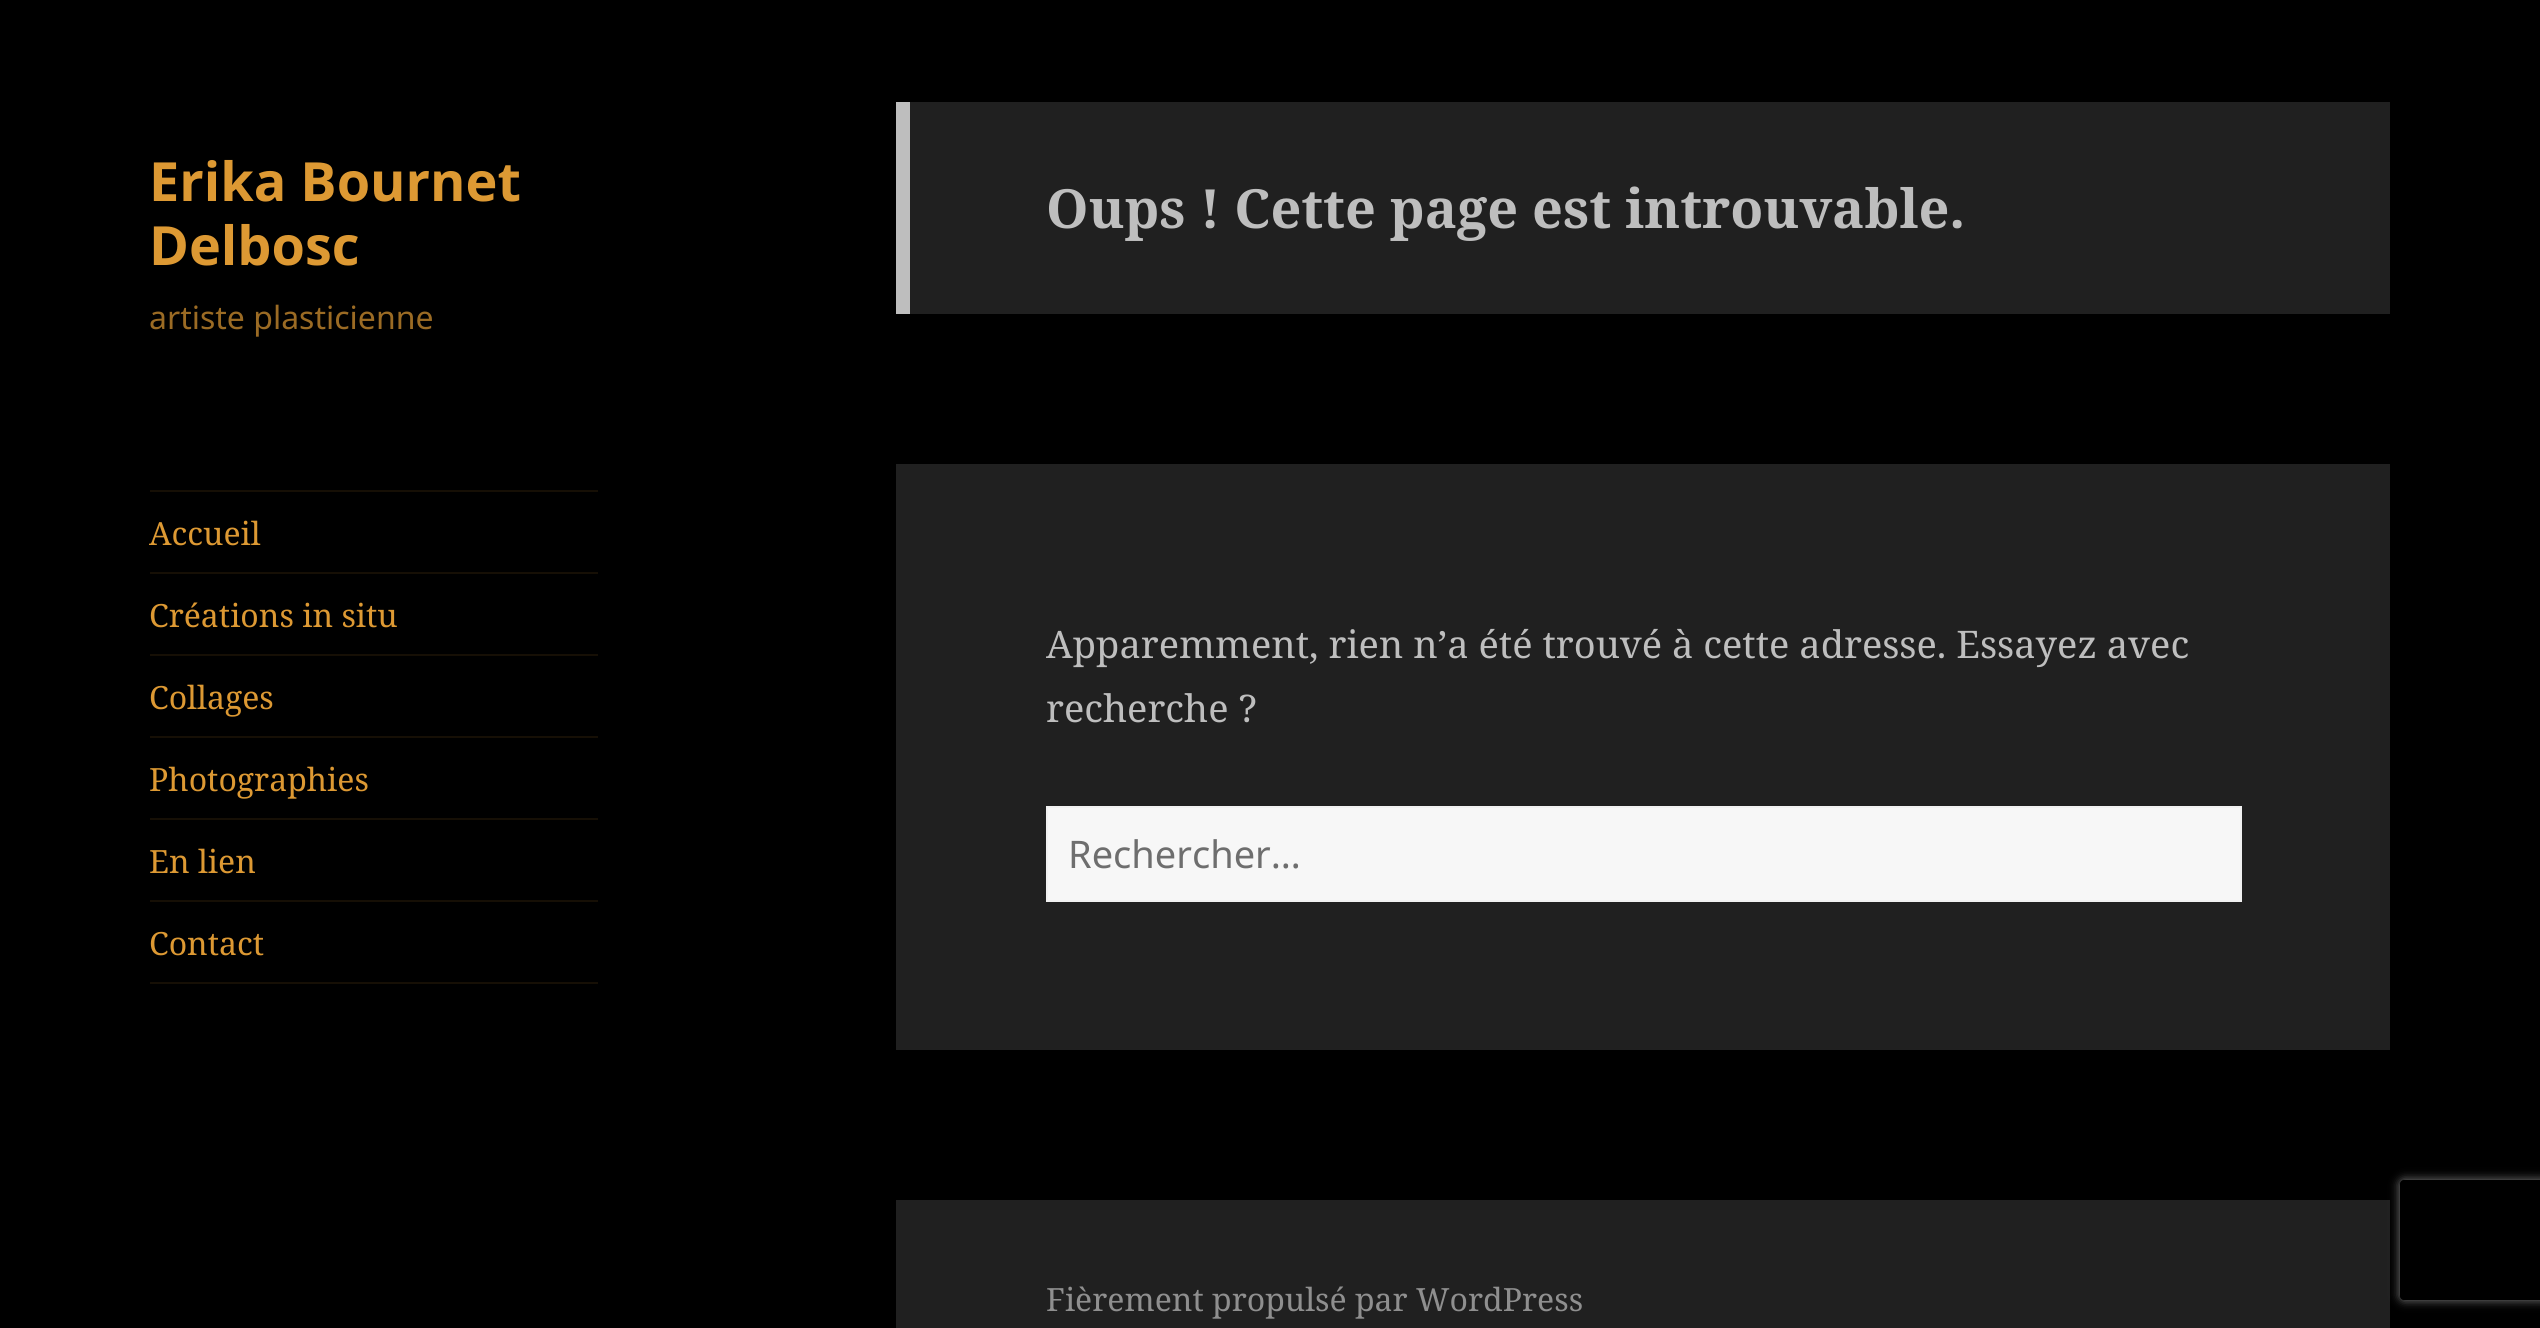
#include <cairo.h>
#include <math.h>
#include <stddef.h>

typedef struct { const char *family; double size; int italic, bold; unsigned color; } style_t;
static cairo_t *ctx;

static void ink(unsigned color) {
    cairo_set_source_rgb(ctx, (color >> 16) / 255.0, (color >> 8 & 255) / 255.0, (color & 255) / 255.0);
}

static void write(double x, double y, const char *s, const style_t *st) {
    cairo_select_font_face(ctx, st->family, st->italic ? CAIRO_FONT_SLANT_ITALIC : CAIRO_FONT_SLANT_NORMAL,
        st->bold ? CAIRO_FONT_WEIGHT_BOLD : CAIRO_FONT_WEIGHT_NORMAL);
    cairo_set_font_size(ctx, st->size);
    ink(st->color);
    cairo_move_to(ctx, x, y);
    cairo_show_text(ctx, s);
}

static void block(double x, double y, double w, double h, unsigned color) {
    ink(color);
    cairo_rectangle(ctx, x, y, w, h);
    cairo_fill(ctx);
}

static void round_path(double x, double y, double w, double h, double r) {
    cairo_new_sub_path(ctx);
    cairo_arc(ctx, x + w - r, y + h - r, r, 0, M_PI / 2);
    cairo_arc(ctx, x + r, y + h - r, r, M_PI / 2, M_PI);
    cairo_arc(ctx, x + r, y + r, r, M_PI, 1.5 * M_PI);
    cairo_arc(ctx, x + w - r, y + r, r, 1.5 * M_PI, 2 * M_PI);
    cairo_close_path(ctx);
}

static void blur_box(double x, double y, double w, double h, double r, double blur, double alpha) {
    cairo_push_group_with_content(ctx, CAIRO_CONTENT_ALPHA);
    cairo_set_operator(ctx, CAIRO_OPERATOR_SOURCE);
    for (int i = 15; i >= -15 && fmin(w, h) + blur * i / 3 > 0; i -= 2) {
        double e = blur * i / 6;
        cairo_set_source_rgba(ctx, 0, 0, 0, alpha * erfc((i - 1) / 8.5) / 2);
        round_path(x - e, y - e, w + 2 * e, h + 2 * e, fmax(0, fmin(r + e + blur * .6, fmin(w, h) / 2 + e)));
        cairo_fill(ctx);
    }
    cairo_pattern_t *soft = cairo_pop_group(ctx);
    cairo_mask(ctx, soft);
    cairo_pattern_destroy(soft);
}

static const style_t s1 = {"Noto Sans", 54, 0, 1, 0xdd9933};
static const style_t s2 = {"Noto Sans", 32, 0, 0, 0x9b6b24};
static const style_t s3 = {"Noto Serif", 32, 0, 0, 0xdd9933};
static const style_t s4 = {"Noto Serif", 54, 0, 1, 0xbebebe};
static const style_t s5 = {"Noto Serif", 38, 0, 0, 0xbebebe};
static const style_t s6 = {"Noto Sans", 38, 0, 0, 0x6e6e6e};
static const style_t s7 = {"Noto Serif", 32, 0, 0, 0x8f8f8f};

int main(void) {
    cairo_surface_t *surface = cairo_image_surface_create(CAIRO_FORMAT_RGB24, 2540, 1328);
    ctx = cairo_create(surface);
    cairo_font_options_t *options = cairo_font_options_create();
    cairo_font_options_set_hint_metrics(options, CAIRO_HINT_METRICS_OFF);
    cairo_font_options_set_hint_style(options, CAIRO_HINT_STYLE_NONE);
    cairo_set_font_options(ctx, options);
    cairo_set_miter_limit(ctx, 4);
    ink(0x000000);
    cairo_paint(ctx);
    write(149, 201, "Erika Bournet", &s1);
    write(149, 265, "Delbosc", &s1);
    write(149, 329, "artiste plasticienne", &s2);
    block(150, 490, 448, 2, 0x160f05);
    block(150, 982, 448, 2, 0x160f05);
    write(149, 545, "Accueil", &s3);
    block(150, 572, 448, 2, 0x160f05);
    write(149, 627, "Créations in situ", &s3);
    block(150, 654, 448, 2, 0x160f05);
    write(149, 709, "Collages", &s3);
    block(150, 736, 448, 2, 0x160f05);
    write(149, 791, "Photographies", &s3);
    block(150, 818, 448, 2, 0x160f05);
    write(149, 873, "En lien", &s3);
    block(150, 900, 448, 2, 0x160f05);
    write(149, 955, "Contact", &s3);
    block(910, 102, 1480, 212, 0x202020);
    block(896, 102, 14, 212, 0xbebebe);
    write(1046, 228, "Oups ! Cette page est introuvable.", &s4);
    block(896, 464, 1494, 586, 0x202020);
    write(1046, 658, "Apparemment, rien n’a été trouvé à cette adresse. Essayez avec", &s5);
    write(1046, 722, "recherche ?", &s5);
    ink(0xf7f7f7);
    cairo_rectangle(ctx, 1047, 807, 1194, 94);
    cairo_fill_preserve(ctx);
    ink(0xf1f1f1);
    cairo_stroke(ctx);
    write(1068, 868, "Rechercher…", &s6);
    block(896, 1200, 1494, 128, 0x202020);
    write(1046, 1311, "Fièrement propulsé par WordPress", &s7);
    cairo_save(ctx);
    cairo_set_fill_rule(ctx, CAIRO_FILL_RULE_EVEN_ODD);
    cairo_new_path(ctx);
    cairo_move_to(ctx, 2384, 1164);
    cairo_line_to(ctx, 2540, 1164);
    cairo_line_to(ctx, 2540, 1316);
    cairo_line_to(ctx, 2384, 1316);
    cairo_close_path(ctx);
    cairo_move_to(ctx, 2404, 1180);
    cairo_line_to(ctx, 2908, 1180);
    cairo_curve_to(ctx, 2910, 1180, 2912, 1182, 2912, 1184);
    cairo_line_to(ctx, 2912, 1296);
    cairo_curve_to(ctx, 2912, 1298, 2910, 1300, 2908, 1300);
    cairo_line_to(ctx, 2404, 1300);
    cairo_curve_to(ctx, 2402, 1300, 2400, 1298, 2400, 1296);
    cairo_line_to(ctx, 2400, 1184);
    cairo_curve_to(ctx, 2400, 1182, 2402, 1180, 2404, 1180);
    cairo_close_path(ctx);
    cairo_clip(ctx);
    ink(0x808080);
    blur_box(2400, 1180, 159, 120, 4, 5, 1);
    cairo_restore(ctx);
    cairo_surface_write_to_png(surface, "screenshot.png");
    cairo_font_options_destroy(options);
    cairo_destroy(ctx);
    cairo_surface_destroy(surface);
    return 0;
}
